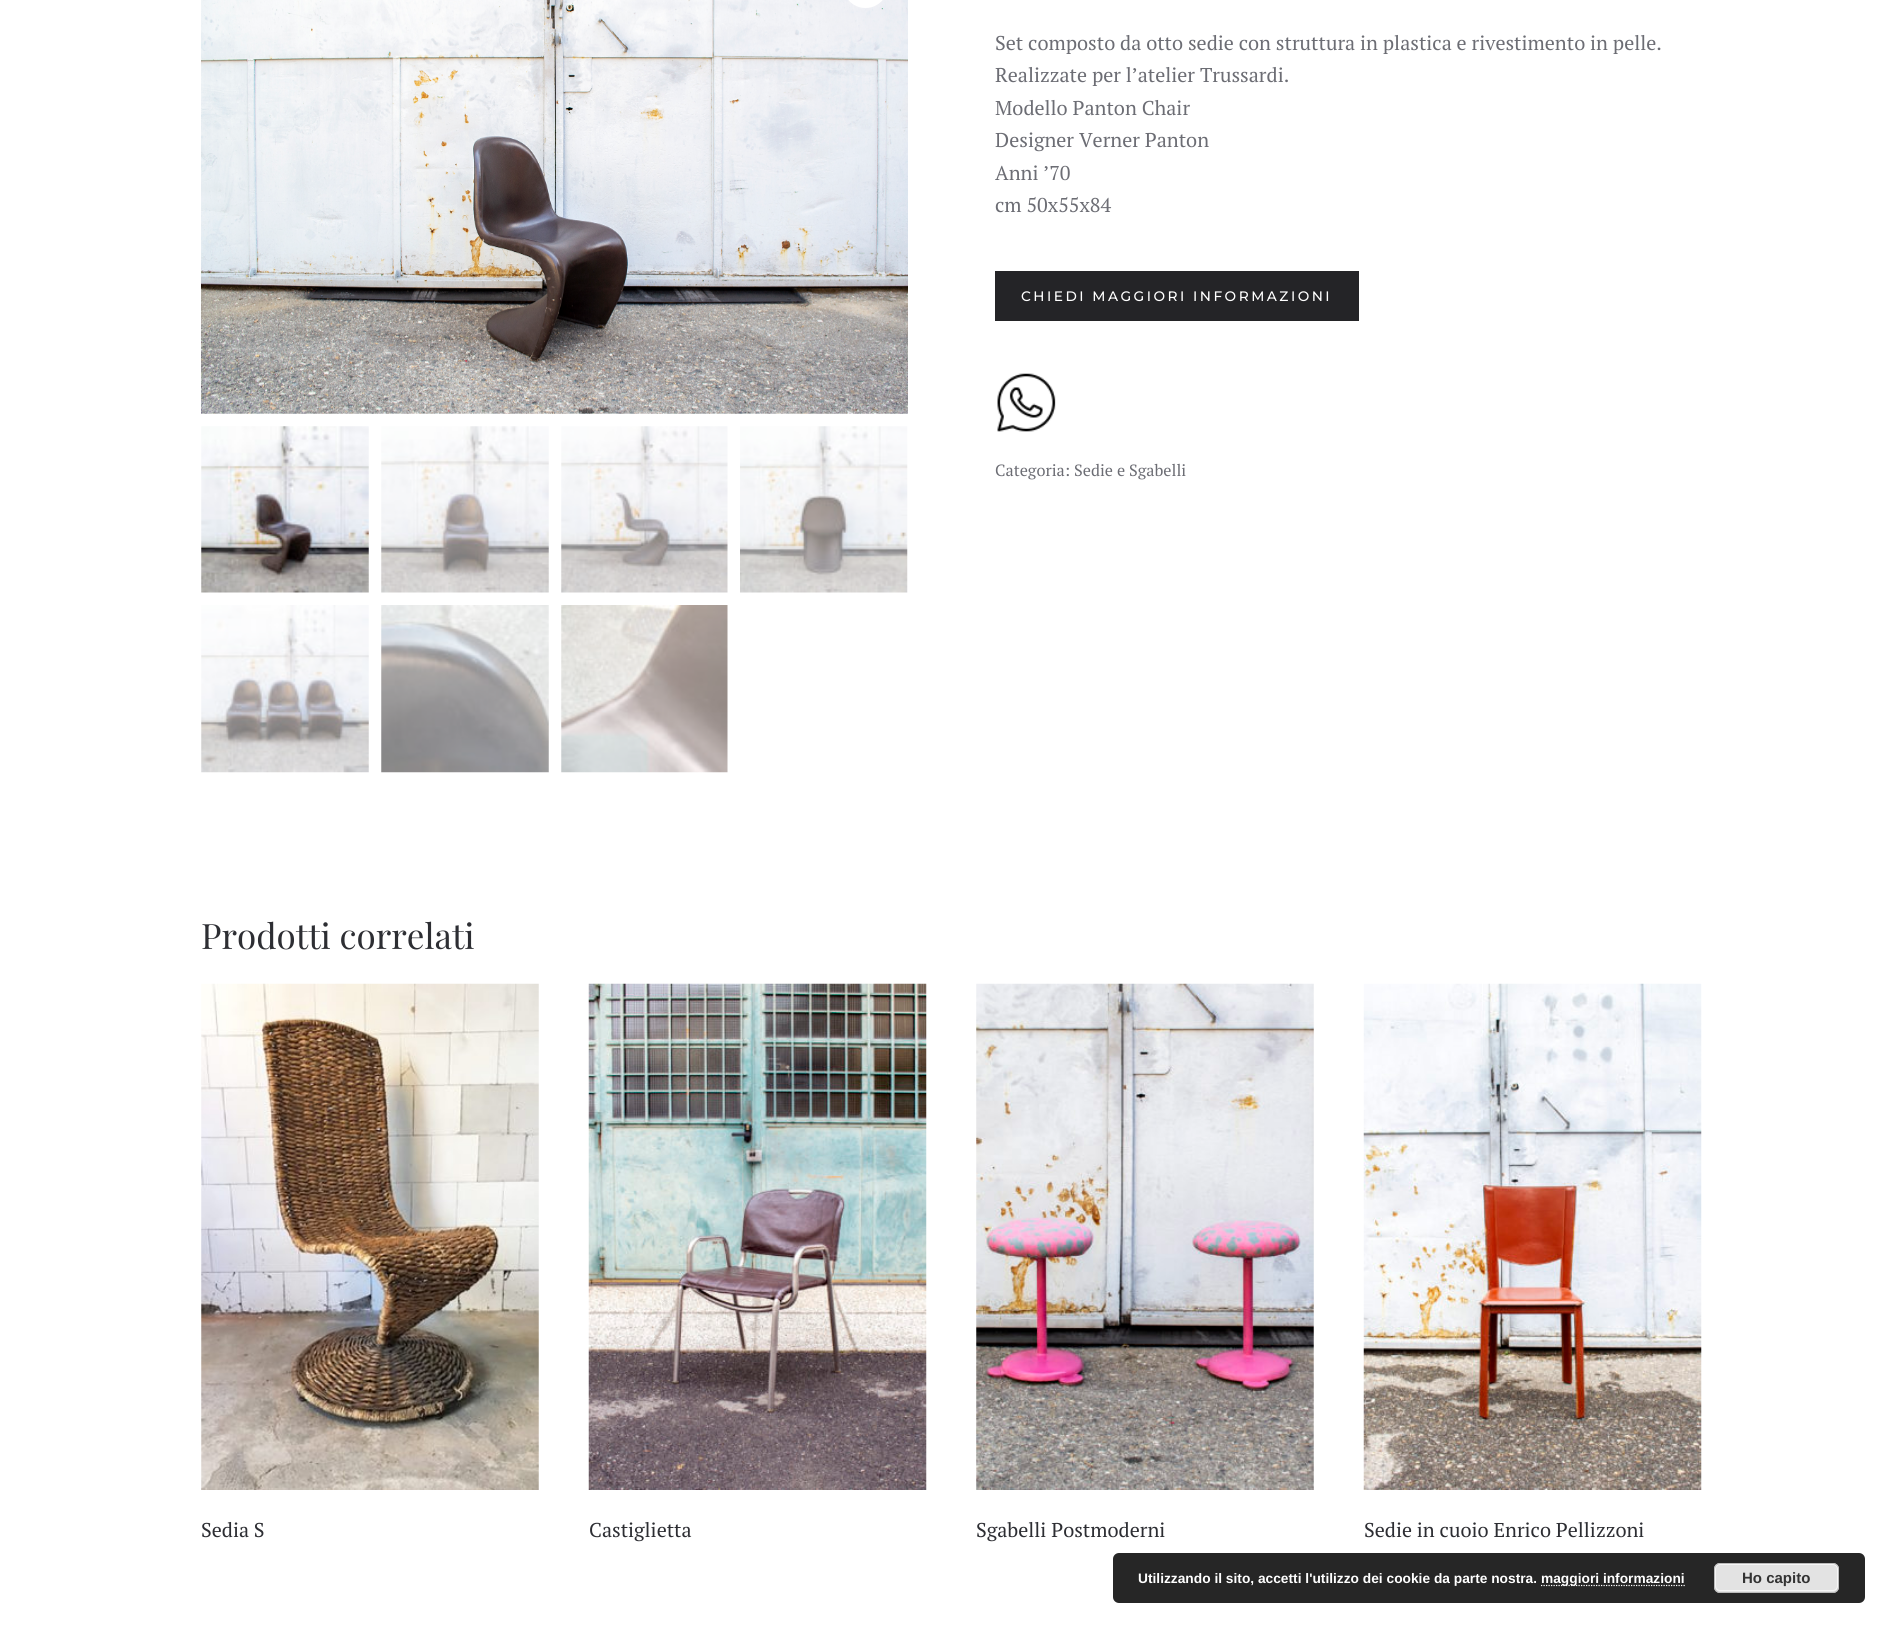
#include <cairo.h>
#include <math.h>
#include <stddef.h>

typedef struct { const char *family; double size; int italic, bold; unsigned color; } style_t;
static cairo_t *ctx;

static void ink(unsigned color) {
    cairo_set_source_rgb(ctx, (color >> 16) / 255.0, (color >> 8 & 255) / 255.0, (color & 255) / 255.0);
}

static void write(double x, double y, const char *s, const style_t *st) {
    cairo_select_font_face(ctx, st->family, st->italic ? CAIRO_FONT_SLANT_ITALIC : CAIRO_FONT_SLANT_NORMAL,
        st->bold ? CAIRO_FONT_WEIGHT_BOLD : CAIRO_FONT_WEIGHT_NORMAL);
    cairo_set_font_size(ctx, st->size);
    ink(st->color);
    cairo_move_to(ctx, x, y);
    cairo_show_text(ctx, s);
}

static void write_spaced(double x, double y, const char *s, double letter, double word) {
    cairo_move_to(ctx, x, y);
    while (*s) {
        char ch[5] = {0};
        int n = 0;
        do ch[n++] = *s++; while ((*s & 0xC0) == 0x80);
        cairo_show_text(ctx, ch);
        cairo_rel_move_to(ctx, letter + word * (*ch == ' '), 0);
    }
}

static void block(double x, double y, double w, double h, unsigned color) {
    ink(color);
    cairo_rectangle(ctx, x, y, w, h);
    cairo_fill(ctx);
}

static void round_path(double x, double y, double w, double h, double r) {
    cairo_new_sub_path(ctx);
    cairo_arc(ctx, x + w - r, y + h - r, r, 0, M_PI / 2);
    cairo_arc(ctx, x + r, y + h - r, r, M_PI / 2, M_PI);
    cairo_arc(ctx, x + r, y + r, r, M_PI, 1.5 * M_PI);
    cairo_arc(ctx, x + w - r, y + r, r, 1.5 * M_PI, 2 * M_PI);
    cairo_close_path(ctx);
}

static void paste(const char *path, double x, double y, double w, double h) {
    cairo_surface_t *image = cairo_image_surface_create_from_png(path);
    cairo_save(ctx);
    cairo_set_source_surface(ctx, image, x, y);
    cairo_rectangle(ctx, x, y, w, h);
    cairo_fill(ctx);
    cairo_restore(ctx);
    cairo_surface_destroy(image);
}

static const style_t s1 = {"PT Serif", 20, 0, 0, 0x6c6d74};
static const style_t s2 = {"PT Serif", 16.25, 0, 0, 0x6c6d74};
static const style_t s3 = {"Playfair Display", 35, 0, 0, 0x2d2e33};
static const style_t s4 = {"PT Serif", 20, 0, 0, 0x2d2e33};
static const style_t s5 = {"Liberation Sans", 13.75, 0, 1, 0xffffff};
static const style_t s6 = {"Liberation Sans", 15, 0, 1, 0x333333};

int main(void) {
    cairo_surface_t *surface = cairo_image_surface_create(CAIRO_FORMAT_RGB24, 1902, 1639);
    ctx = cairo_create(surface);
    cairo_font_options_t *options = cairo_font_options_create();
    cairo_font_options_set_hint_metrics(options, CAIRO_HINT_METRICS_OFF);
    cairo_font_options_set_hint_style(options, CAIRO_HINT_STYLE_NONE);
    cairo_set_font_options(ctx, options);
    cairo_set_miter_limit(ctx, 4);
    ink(0xffffff);
    cairo_paint(ctx);
    paste("pic1.png", 201, 0, 707, 414);
    ink(0xffffff);
    round_path(843, -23, 45, 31, 22.5);
    cairo_fill(ctx);
    paste("pic2.png", 201, 426, 168, 167);
    paste("pic3.png", 381, 426, 168, 167);
    paste("pic4.png", 561, 426, 167, 167);
    paste("pic5.png", 740, 426, 168, 167);
    paste("pic6.png", 201, 605, 168, 168);
    paste("pic7.png", 381, 605, 168, 168);
    paste("pic8.png", 561, 605, 167, 168);
    write(995, 50, "Set composto da otto sedie con struttura in plastica e rivestimento in pelle.", &s1);
    write(995, 82, "Realizzate per l’atelier Trussardi.", &s1);
    write(995, 115, "Modello Panton Chair", &s1);
    write(995, 147, "Designer Verner Panton", &s1);
    write(995, 180, "Anni ’70", &s1);
    write(995, 212, "cm 50x55x84", &s1);
    block(995, 271, 364, 50, 0x242427);
    cairo_select_font_face(ctx, "Montserrat Thin", CAIRO_FONT_SLANT_NORMAL, CAIRO_FONT_WEIGHT_NORMAL);
    cairo_set_font_size(ctx, 13.75);
    ink(0xffffff);
    write_spaced(1021, 301, "CHIEDI MAGGIORI INFORMAZIONI", 2.5, 0);
    paste("pic9.png", 997, 373, 59, 59);
    write(995, 476, "Categoria: Sedie e Sgabelli", &s2);
    write(201, 949, "Prodotti correlati", &s3);
    paste("pic10.png", 201, 983, 338, 507);
    write(201, 1537, "Sedia S", &s4);
    paste("pic11.png", 588, 983, 339, 507);
    write(589, 1537, "Castiglietta", &s4);
    paste("pic12.png", 976, 983, 338, 507);
    write(976, 1537, "Sgabelli Postmoderni", &s4);
    paste("pic13.png", 1363, 983, 339, 507);
    write(1364, 1537, "Sedie in cuoio Enrico Pellizzoni", &s4);
    ink(0x262626);
    round_path(1113, 1553, 752, 50, 6);
    cairo_fill(ctx);
    write(1138, 1583, "Utilizzando il sito, accetti l'utilizzo dei cookie da parte nostra.", &s5);
    cairo_new_path(ctx);
    cairo_move_to(ctx, 1541, 1585.5);
    cairo_line_to(ctx, 1685, 1585.5);
    cairo_set_line_width(ctx, 1.2);
    cairo_set_dash(ctx, (double[]){1.25, 1.25}, 2, 0);
    cairo_stroke(ctx);
    write(1541, 1583, "maggiori informazioni", &s5);
    ink(0xe3e3e3);
    round_path(1714, 1563, 125, 30, 6);
    cairo_fill(ctx);
    round_path(1715.5, 1564.5, 122, 26, 4.5);
    ink(0xf6f6f6);
    cairo_set_line_width(ctx, 1);
    cairo_set_dash(ctx, NULL, 0, 0);
    cairo_stroke(ctx);
    round_path(1714.5, 1563.5, 124, 29, 5.5);
    ink(0xbbbbbb);
    cairo_stroke(ctx);
    write(1742, 1583, "Ho capito", &s6);
    cairo_surface_write_to_png(surface, "screenshot.png");
    cairo_font_options_destroy(options);
    cairo_destroy(ctx);
    cairo_surface_destroy(surface);
    return 0;
}
